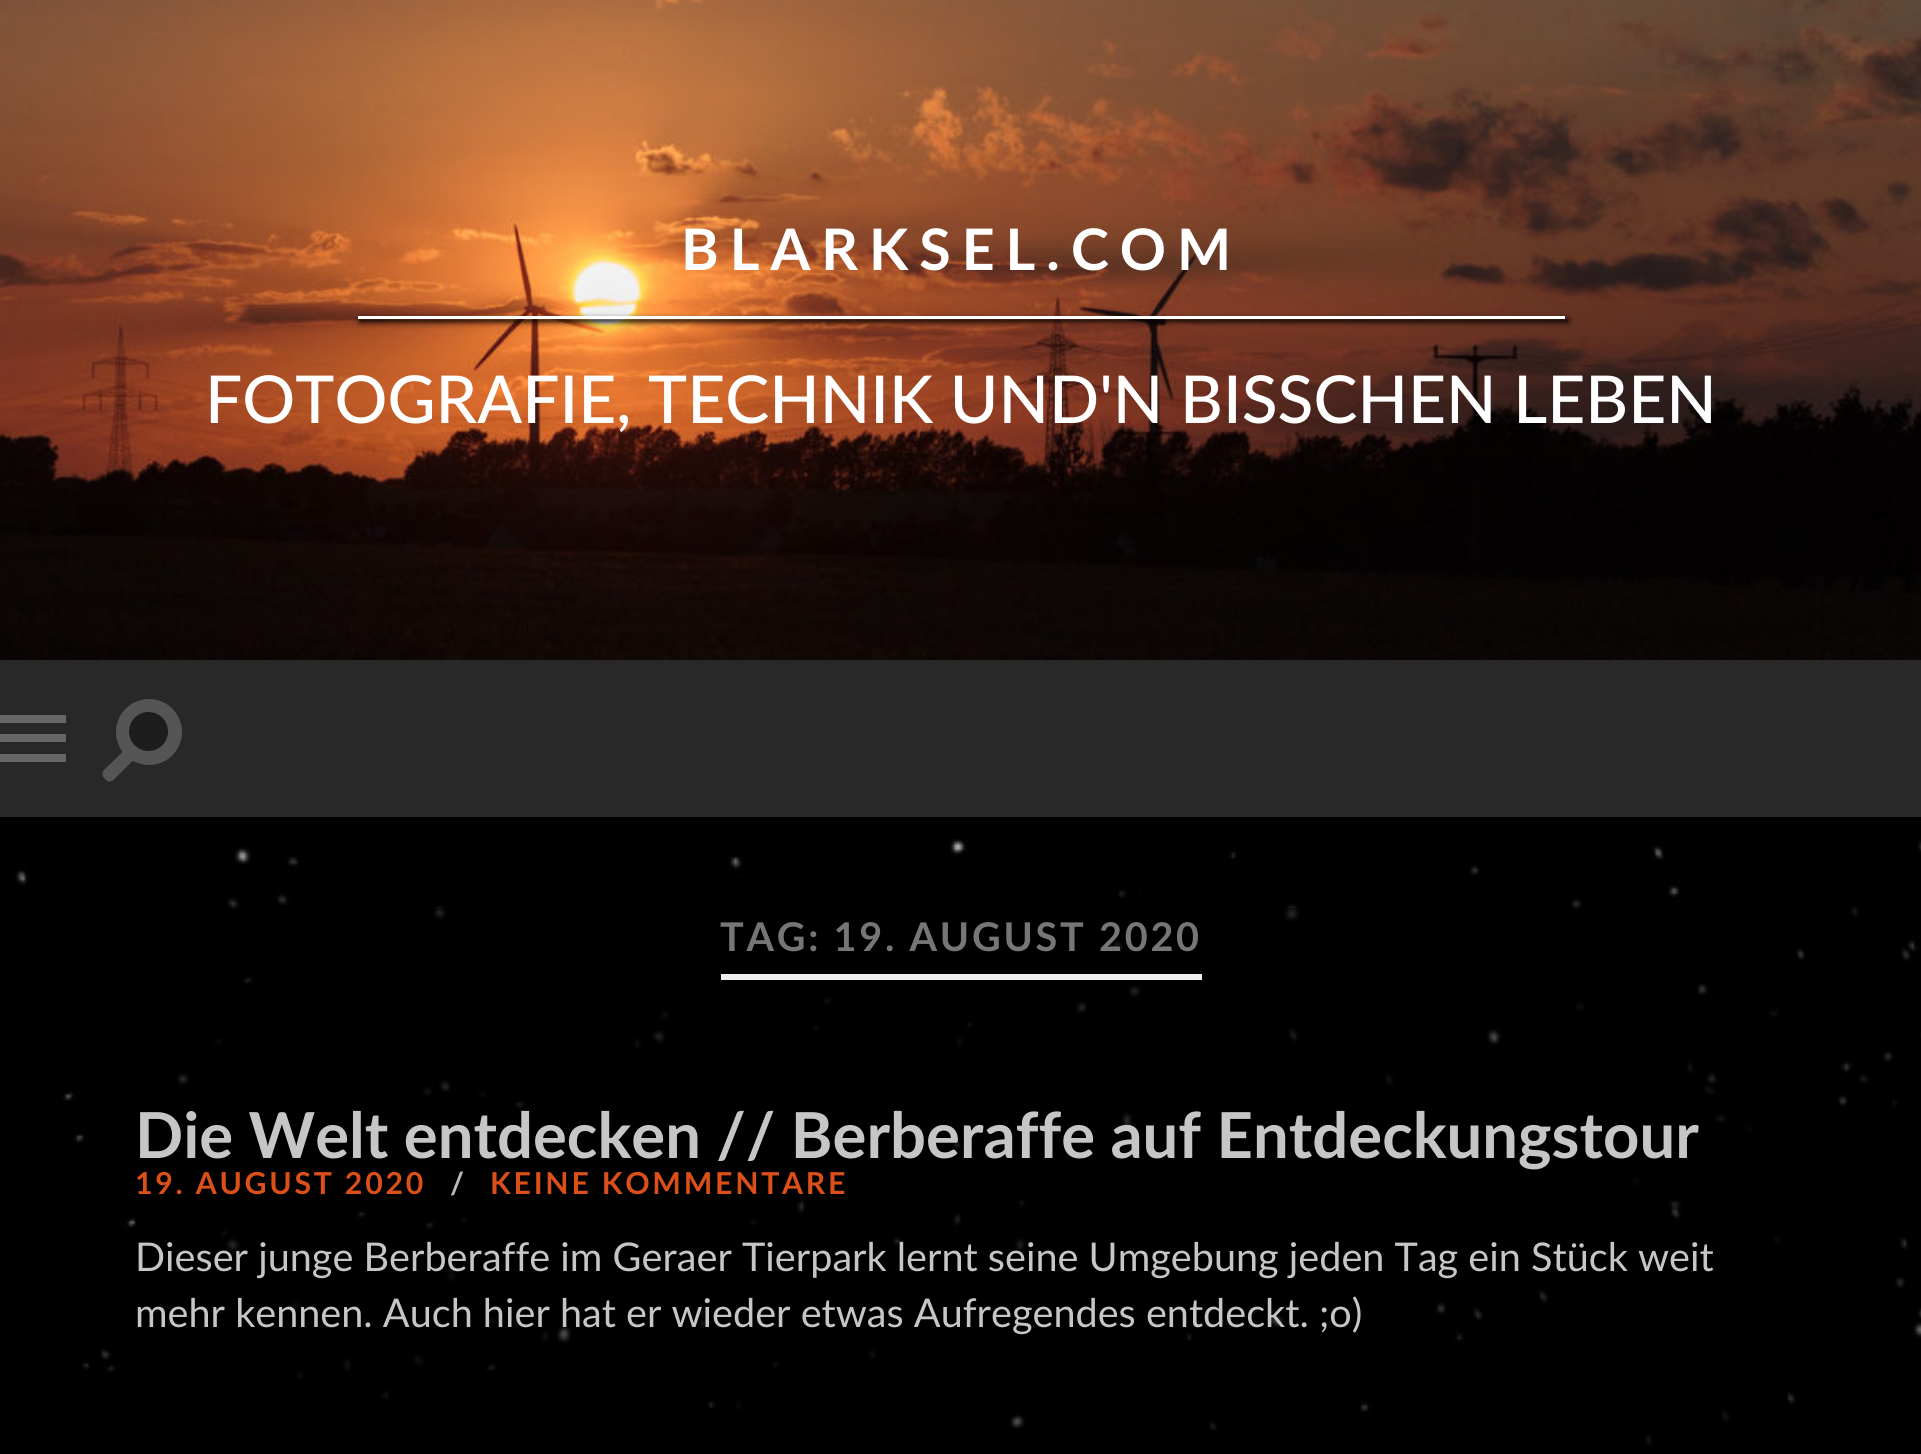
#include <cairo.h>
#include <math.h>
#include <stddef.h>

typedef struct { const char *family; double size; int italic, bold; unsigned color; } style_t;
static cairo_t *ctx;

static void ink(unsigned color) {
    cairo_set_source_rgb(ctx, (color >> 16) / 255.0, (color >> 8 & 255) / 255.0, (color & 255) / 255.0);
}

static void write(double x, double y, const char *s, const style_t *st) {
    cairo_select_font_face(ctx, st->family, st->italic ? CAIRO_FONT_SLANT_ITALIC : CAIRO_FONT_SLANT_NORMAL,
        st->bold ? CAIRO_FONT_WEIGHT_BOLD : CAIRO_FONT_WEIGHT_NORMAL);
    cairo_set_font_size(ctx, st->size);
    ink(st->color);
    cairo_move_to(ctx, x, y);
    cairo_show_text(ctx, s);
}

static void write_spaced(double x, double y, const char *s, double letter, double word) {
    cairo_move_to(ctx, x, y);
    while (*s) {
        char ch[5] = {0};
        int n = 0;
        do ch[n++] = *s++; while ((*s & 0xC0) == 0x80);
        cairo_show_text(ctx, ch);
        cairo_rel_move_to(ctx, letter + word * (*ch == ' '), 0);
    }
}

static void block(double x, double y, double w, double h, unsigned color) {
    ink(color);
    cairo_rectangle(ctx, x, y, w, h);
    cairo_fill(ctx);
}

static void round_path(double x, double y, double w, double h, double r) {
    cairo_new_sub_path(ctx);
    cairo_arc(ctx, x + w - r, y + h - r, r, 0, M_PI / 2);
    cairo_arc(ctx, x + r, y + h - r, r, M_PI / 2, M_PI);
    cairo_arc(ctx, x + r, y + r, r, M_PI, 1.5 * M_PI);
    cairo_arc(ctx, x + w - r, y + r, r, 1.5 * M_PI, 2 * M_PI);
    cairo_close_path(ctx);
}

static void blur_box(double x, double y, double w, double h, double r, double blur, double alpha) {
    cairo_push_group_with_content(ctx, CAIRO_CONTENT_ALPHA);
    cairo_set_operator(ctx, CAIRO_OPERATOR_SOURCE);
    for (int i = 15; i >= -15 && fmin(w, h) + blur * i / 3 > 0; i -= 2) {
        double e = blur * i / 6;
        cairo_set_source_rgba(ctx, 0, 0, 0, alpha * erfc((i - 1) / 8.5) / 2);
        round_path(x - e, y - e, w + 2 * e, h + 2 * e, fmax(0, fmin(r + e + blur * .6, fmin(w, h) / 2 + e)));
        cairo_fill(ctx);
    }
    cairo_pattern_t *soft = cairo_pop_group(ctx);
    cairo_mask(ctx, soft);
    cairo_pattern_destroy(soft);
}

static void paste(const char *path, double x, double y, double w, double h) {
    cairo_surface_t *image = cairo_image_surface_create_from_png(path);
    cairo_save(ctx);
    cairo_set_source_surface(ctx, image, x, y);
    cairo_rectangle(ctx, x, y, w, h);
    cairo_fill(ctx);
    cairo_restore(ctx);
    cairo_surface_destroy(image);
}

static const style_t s1 = {"Lato Medium", 66, 0, 0, 0xffffff};
static const style_t s2 = {"Lato", 63.4, 0, 1, 0xc7c6c6};
static const style_t s3 = {"Lato", 39.6, 0, 0, 0xc7c6c6};

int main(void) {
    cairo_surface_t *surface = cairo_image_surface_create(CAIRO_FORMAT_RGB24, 1921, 1454);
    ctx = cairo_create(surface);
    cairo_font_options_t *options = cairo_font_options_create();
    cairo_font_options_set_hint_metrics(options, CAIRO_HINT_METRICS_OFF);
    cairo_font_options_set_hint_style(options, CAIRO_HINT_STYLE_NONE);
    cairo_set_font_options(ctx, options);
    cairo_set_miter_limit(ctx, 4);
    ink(0xffffff);
    cairo_paint(ctx);
    paste("pic1.png", 0, 817, 1921, 637);
    paste("pic2.png", 0, 0, 1921, 660);
    cairo_select_font_face(ctx, "Lato", CAIRO_FONT_SLANT_NORMAL, CAIRO_FONT_WEIGHT_BOLD);
    cairo_set_font_size(ctx, 57.25);
    ink(0xffffff);
    write_spaced(681, 270, "BLARKSEL.COM", 11, 0);
    ink(0x000000);
    blur_box(360, 319, 1208, 3, 0, 3, 1);
    block(358, 316, 1207, 3, 0xffffff);
    write(205, 423, "FOTOGRAFIE, TECHNIK UND'N BISSCHEN LEBEN", &s1);
    block(0, 660, 1921, 157, 0x282828);
    block(0, 715, 66, 8, 0x666666);
    block(0, 734, 66, 8, 0x666666);
    block(0, 754, 66, 8, 0x666666);
    ink(0x555555);
    cairo_new_path(ctx);
    cairo_arc(ctx, 149, 732, 33, 0, 2 * M_PI);
    cairo_fill(ctx);
    ink(0x1d1d1d);
    cairo_arc(ctx, 148.5, 731.5, 19.5, 0, 2 * M_PI);
    cairo_fill(ctx);
    ink(0x555555);
    cairo_new_path(ctx);
    cairo_move_to(ctx, 104, 770);
    cairo_line_to(ctx, 127.5, 747);
    cairo_line_to(ctx, 137, 756.5);
    cairo_line_to(ctx, 113.5, 780);
    cairo_curve_to(ctx, 111.5, 782, 108, 782, 106, 780);
    cairo_line_to(ctx, 104, 778);
    cairo_curve_to(ctx, 102, 776, 102, 772.5, 104, 770);
    cairo_close_path(ctx);
    cairo_fill(ctx);
    cairo_set_source_rgba(ctx, 0, 0, 0, 0.6);
    cairo_rectangle(ctx, 135, 908, 1653, 537);
    cairo_fill(ctx);
    block(721, 974, 481, 6, 0xeeeeee);
    cairo_select_font_face(ctx, "Lato", CAIRO_FONT_SLANT_NORMAL, CAIRO_FONT_WEIGHT_BOLD);
    cairo_set_font_size(ctx, 39.6);
    ink(0x767676);
    write_spaced(720, 951, "TAG: 19. AUGUST 2020", 2.75, 0);
    write(135, 1158, "Die Welt entdecken // Berberaffe auf Entdeckungstour", &s2);
    cairo_set_font_size(ctx, 30.25);
    ink(0xdb4f18);
    write_spaced(135, 1194, "19. AUGUST 2020", 2.75, 0);
    ink(0xbbbbbb);
    write_spaced(450, 1194, "/", 2.75, 0);
    ink(0xdb4f18);
    write_spaced(490, 1194, "KEINE KOMMENTARE", 2.75, 0);
    write(135, 1271, "Dieser junge Berberaffe im Geraer Tierpark lernt seine Umgebung jeden Tag ein Stück weit", &s3);
    write(135, 1327, "mehr kennen. Auch hier hat er wieder etwas Aufregendes entdeckt. ;o)", &s3);
    cairo_surface_write_to_png(surface, "screenshot.png");
    cairo_font_options_destroy(options);
    cairo_destroy(ctx);
    cairo_surface_destroy(surface);
    return 0;
}
